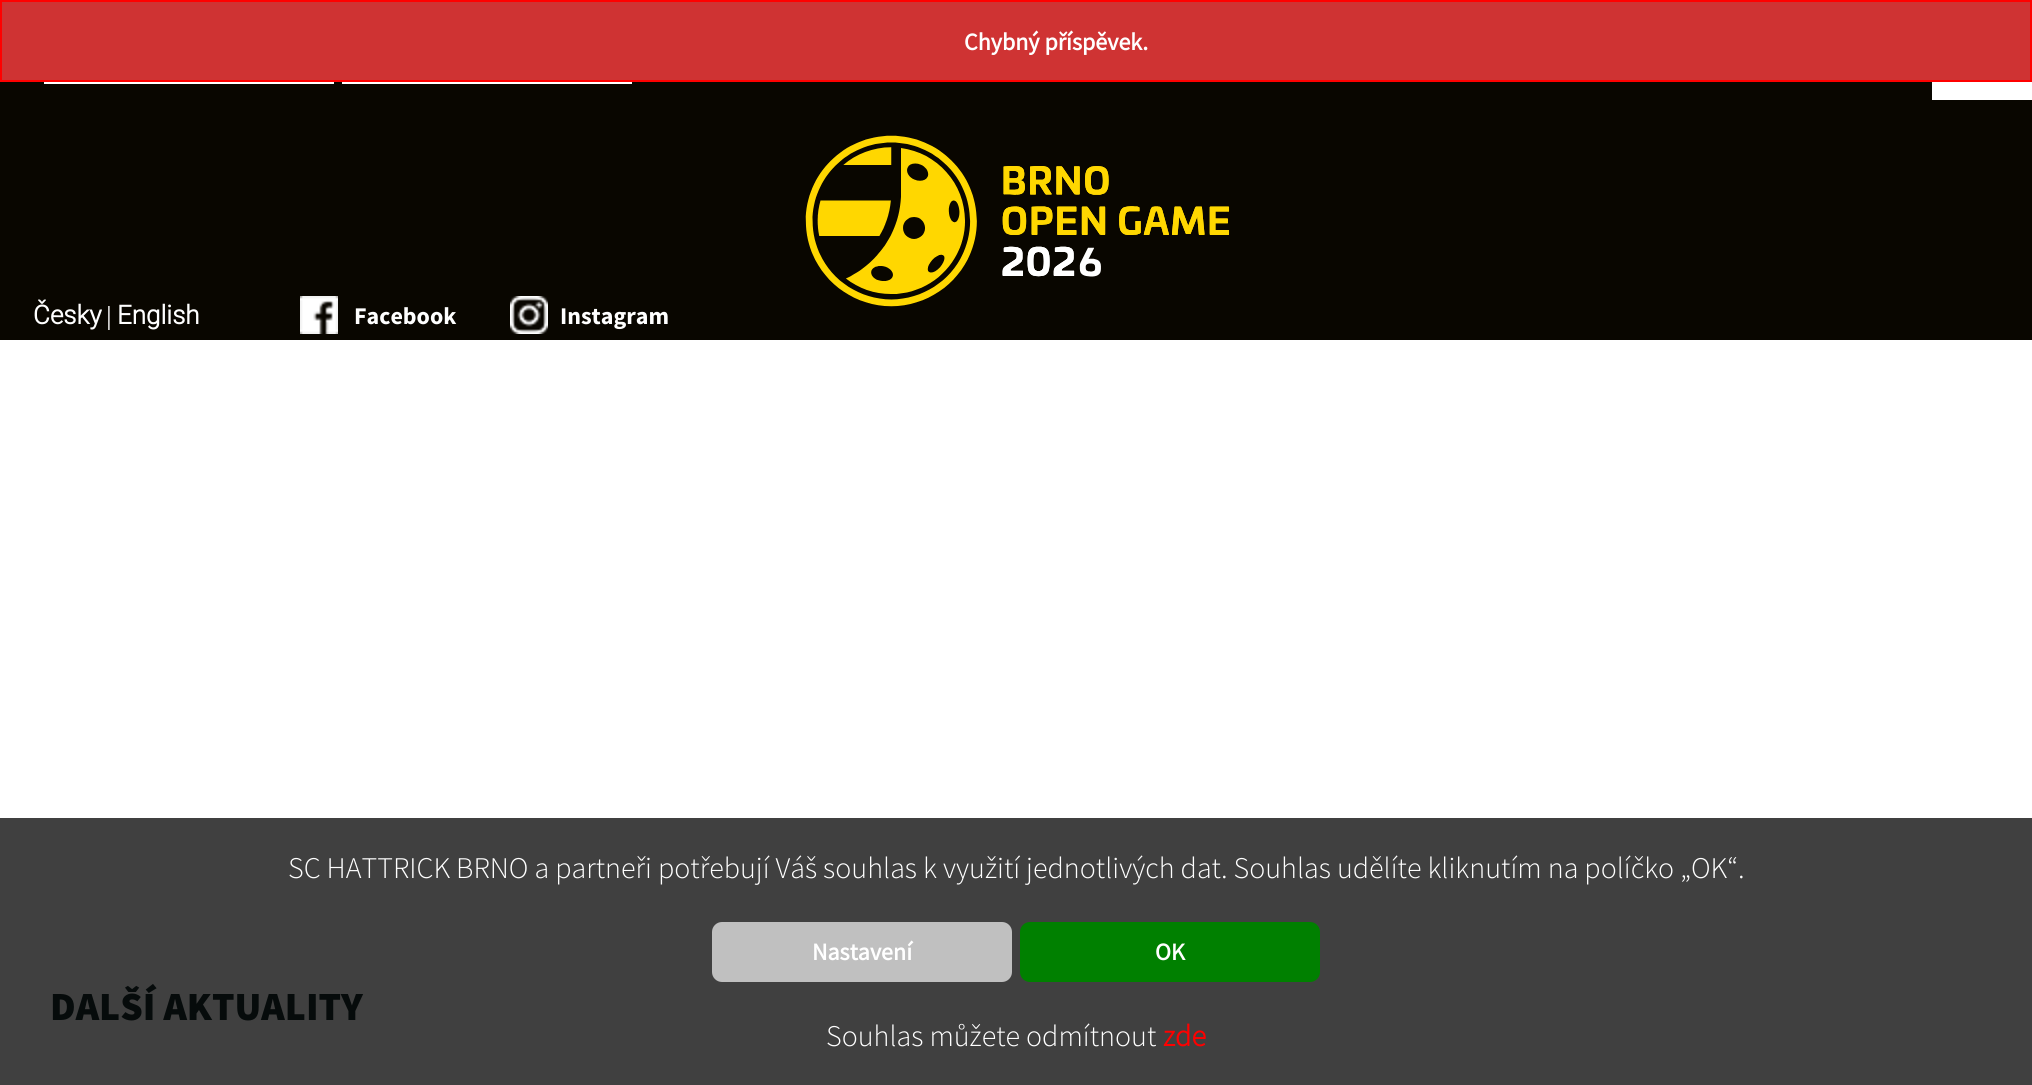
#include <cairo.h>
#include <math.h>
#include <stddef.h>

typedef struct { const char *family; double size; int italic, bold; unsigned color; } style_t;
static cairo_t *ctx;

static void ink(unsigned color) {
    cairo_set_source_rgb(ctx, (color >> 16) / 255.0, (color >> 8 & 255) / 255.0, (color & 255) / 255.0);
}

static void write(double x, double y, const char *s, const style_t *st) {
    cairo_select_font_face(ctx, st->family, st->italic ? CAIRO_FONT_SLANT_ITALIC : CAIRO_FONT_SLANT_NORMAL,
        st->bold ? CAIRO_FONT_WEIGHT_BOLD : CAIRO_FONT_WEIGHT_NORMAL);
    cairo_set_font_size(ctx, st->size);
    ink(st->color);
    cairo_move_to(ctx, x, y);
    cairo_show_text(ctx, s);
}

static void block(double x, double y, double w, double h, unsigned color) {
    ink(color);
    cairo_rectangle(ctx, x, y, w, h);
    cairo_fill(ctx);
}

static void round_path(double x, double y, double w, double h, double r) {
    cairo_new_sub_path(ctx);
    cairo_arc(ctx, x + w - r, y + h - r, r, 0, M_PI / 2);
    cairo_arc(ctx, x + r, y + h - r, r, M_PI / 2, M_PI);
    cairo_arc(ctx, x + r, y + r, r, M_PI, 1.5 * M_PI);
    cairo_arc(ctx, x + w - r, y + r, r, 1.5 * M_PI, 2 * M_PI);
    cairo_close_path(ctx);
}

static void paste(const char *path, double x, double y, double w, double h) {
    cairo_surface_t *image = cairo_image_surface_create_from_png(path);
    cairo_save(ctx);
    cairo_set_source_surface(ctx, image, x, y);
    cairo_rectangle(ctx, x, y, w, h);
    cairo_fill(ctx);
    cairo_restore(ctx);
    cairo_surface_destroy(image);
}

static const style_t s1 = {"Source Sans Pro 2", 24, 0, 1, 0xffffff};
static const style_t s2 = {"Roboto", 26, 0, 1, 0xffffff};
static const style_t s3 = {"Source Sans Pro", 24, 0, 0, 0xffffff};
static const style_t s4 = {"Source Sans Pro", 24, 0, 1, 0xffffff};
static const style_t s5 = {"Source Sans Pro Black", 40, 0, 0, 0x060b0b};
static const style_t s6 = {"Source Sans Pro Light", 30, 0, 0, 0xffffff};
static const style_t s7 = {"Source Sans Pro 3", 30, 0, 1, 0xff0000};

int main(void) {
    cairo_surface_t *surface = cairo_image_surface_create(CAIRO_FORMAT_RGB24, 2032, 1085);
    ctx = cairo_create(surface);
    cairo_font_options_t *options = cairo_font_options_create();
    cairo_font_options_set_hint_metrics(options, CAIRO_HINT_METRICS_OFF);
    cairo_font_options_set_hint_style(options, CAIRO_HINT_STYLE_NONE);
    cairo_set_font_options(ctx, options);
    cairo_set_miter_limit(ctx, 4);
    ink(0xffffff);
    cairo_paint(ctx);
    ink(0xcf3333);
    cairo_rectangle(ctx, 1, 1, 2030, 80);
    cairo_fill_preserve(ctx);
    ink(0xff0000);
    cairo_stroke(ctx);
    write(964, 50, "Chybný příspěvek.", &s1);
    block(0, 82, 2032, 258, 0x090600);
    block(44, 82, 290, 2, 0xffffff);
    block(342, 82, 290, 2, 0xffffff);
    block(1932, 82, 100, 18, 0xffffff);
    paste("pic1.png", 805, 135, 425, 172);
    write(33, 324, "Česky", &s2);
    write(106, 324, "|", &s3);
    write(117, 324, "English", &s2);
    paste("pic2.png", 300, 296, 38, 38);
    write(354, 324, "Facebook", &s4);
    paste("pic3.png", 510, 296, 38, 38);
    write(560, 324, "Instagram", &s4);
    block(0, 818, 2032, 267, 0x404040);
    write(50, 1020, "DALŠÍ AKTUALITY", &s5);
    write(288, 878, "SC HATTRICK BRNO a partneři potřebují Váš souhlas k využití jednotlivých dat. Souhlas udělíte kliknutím na políčko „OK“.", &s6);
    ink(0xc0c0c0);
    round_path(712, 922, 300, 60, 10);
    cairo_fill(ctx);
    write(812, 960, "Nastavení", &s1);
    ink(0x008000);
    round_path(1020, 922, 300, 60, 10);
    cairo_fill(ctx);
    write(1155, 960, "OK", &s1);
    write(826, 1046, "Souhlas můžete odmítnout", &s6);
    write(1163, 1046, "zde", &s7);
    cairo_surface_write_to_png(surface, "screenshot.png");
    cairo_font_options_destroy(options);
    cairo_destroy(ctx);
    cairo_surface_destroy(surface);
    return 0;
}
